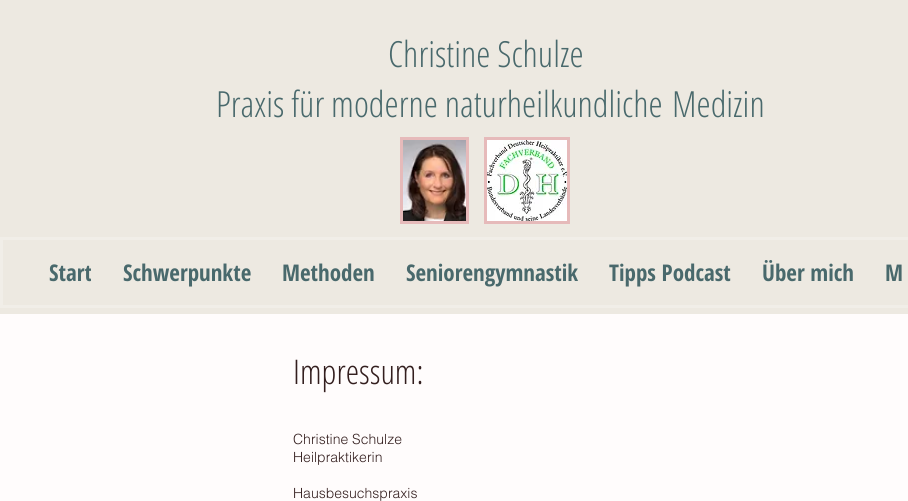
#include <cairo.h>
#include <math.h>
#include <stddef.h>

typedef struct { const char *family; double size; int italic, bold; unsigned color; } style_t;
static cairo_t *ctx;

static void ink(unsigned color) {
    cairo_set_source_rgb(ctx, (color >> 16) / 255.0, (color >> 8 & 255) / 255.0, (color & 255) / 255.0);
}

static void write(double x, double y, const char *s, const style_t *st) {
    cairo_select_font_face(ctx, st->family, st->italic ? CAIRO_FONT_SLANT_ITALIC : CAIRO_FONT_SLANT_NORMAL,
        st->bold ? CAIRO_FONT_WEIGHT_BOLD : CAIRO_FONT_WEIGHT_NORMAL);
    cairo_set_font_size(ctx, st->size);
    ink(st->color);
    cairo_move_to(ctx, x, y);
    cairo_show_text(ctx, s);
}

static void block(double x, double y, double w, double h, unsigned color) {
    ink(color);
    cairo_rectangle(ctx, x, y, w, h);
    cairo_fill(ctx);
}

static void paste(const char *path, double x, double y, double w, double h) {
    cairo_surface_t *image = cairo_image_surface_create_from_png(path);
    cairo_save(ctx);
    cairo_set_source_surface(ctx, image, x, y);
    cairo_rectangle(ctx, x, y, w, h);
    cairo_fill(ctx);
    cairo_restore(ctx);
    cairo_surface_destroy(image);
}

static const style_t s1 = {"Open Sans Condensed Light", 36, 0, 0, 0x49696c};
static const style_t s2 = {"Open Sans Condensed", 23, 0, 1, 0x49696c};
static const style_t s3 = {"Open Sans Condensed Light", 34, 0, 0, 0x331e1e};
static const style_t s4 = {"helvetica Light", 14, 0, 0, 0x331e1e};

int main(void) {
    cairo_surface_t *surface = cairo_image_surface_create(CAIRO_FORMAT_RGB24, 908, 501);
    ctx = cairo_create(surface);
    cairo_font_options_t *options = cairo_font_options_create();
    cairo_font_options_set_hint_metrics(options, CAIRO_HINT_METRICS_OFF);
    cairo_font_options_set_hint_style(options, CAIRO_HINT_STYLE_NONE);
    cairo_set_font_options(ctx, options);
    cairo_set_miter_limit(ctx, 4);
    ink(0xede9e1);
    cairo_paint(ctx);
    write(388, 67, "Christine Schulze", &s1);
    write(216, 117, "Praxis für moderne naturheilkundliche", &s1);
    write(672, 117, "Medizin", &s1);
    cairo_rectangle(ctx, 1.5, 238.5, 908, 68);
    ink(0xf1eee8);
    cairo_set_line_width(ctx, 3);
    cairo_stroke(ctx);
    write(49, 281, "Start", &s2);
    write(123, 281, "Schwerpunkte", &s2);
    write(282, 281, "Methoden", &s2);
    write(406, 281, "Seniorengymnastik", &s2);
    write(609, 281, "Tipps Podcast", &s2);
    write(762, 281, "Über mich", &s2);
    write(885, 281, "M", &s2);
    block(400, 137, 69, 87, 0xe6baba);
    paste("pic1.png", 403, 140, 63, 81);
    block(484, 137, 86, 87, 0xe6baba);
    paste("pic2.png", 487, 140, 80, 81);
    block(0, 314, 908, 187, 0xfffcfc);
    write(293, 384, "Impressum:", &s3);
    write(293, 444, "Christine Schulze", &s4);
    write(293, 462, "Heilpraktikerin", &s4);
    write(293, 498, "Hausbesuchspraxis", &s4);
    cairo_surface_write_to_png(surface, "screenshot.png");
    cairo_font_options_destroy(options);
    cairo_destroy(ctx);
    cairo_surface_destroy(surface);
    return 0;
}
